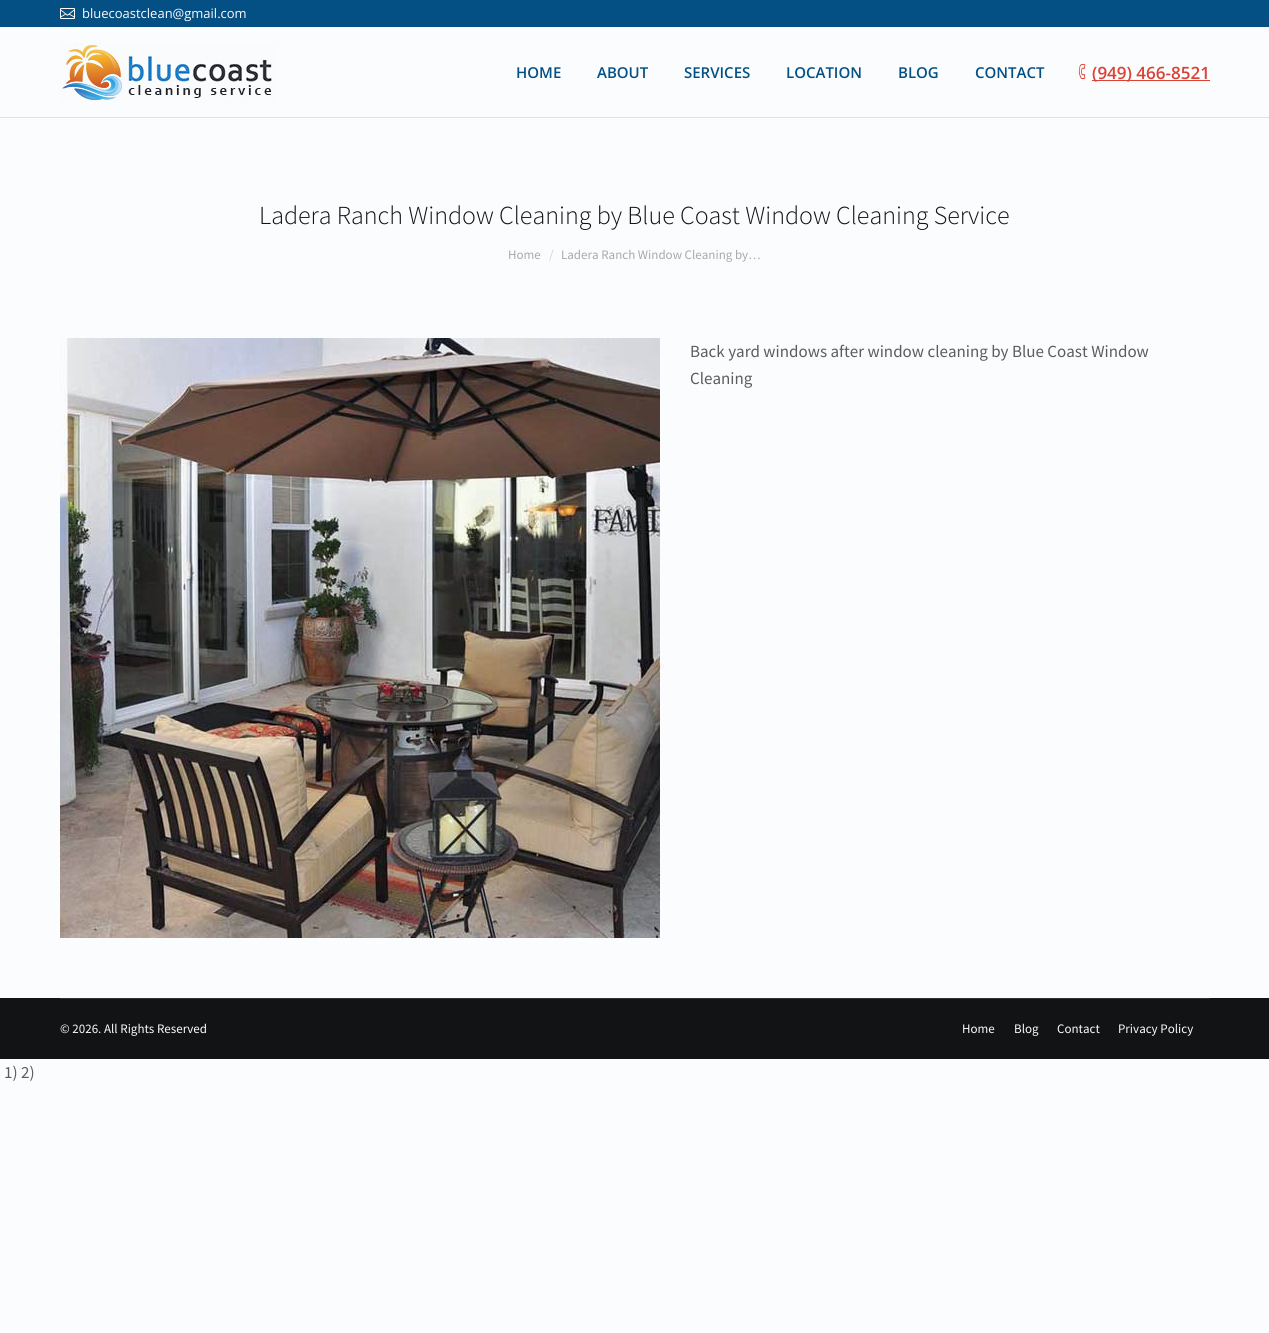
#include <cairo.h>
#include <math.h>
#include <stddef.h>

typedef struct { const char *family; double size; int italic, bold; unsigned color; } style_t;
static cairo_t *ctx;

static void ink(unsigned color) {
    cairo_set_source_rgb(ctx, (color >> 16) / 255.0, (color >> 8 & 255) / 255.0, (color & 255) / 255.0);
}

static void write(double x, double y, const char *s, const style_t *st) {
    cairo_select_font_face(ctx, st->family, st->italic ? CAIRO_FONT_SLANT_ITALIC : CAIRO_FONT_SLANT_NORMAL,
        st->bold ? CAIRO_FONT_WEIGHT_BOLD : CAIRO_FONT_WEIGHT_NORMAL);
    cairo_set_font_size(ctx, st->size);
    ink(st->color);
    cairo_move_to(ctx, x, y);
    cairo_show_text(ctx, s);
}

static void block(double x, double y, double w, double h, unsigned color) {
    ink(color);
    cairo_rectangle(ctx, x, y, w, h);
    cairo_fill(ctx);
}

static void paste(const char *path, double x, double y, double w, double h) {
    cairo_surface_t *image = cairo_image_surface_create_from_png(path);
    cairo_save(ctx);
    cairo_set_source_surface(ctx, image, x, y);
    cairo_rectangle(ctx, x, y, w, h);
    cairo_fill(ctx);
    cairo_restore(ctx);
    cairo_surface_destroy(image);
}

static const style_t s1 = {"Open Sans", 13, 0, 0, 0xfbfcfe};
static const style_t s2 = {"Open Sans SemiBold", 15, 0, 0, 0x045084};
static const style_t s3 = {"Open Sans SemiBold", 17, 0, 0, 0xd94235};
static const style_t s4 = {"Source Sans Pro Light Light", 26, 0, 0, 0x111314};
static const style_t s5 = {"Source Sans Pro", 13, 0, 0, 0xa7a9aa};
static const style_t s6 = {"Source Sans Pro", 13, 0, 0, 0xd1d3d5};
static const style_t s7 = {"Source Sans Pro", 17, 0, 0, 0x5a5c5d};
static const style_t s8 = {"Source Sans Pro", 13, 0, 0, 0xfbfcfe};

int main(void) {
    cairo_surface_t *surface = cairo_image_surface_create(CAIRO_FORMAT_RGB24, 1269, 1333);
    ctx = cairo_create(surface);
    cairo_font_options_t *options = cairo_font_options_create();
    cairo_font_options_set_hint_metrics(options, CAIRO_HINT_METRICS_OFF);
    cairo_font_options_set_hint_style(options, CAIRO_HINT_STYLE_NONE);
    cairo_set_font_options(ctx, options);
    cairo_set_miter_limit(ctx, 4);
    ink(0xfbfcfe);
    cairo_paint(ctx);
    block(0, 117, 1269, 1, 0xd8e4ed);
    block(0, 0, 1269, 27, 0x045084);
    paste("pic1.png", 60, 8, 15, 11);
    write(82, 18, "bluecoastclean@gmail.com", &s1);
    paste("pic2.png", 60, 42, 215, 60);
    write(516, 78, "HOME", &s2);
    write(597, 78, "ABOUT", &s2);
    write(684, 78, "SERVICES", &s2);
    write(786, 78, "LOCATION", &s2);
    write(898, 78, "BLOG", &s2);
    write(975, 78, "CONTACT", &s2);
    paste("pic3.png", 1078, 64, 8, 15);
    block(1092, 80, 118, 1, 0xd94235);
    write(1092, 79, "(949) 466-8521", &s3);
    write(259, 224, "Ladera Ranch Window Cleaning by Blue Coast Window Cleaning Service", &s4);
    write(508, 259, "Home", &s5);
    write(549, 259, "/", &s6);
    write(561, 259, "Ladera Ranch Window Cleaning by…", &s5);
    paste("pic4.png", 60, 338, 600, 600);
    write(690, 357, "Back yard windows after window cleaning by Blue Coast Window", &s7);
    write(690, 384, "Cleaning", &s7);
    block(0, 998, 1269, 61, 0x111314);
    block(60, 998, 1150, 1, 0x303133);
    write(60, 1033, "© 2026. All Rights Reserved", &s8);
    write(962, 1033, "Home", &s8);
    write(1014, 1033, "Blog", &s8);
    write(1057, 1033, "Contact", &s8);
    write(1118, 1033, "Privacy Policy", &s8);
    paste("pic5.png", 605, 637, 59, 55);
    write(4, 1078, "1) 2)", &s7);
    cairo_surface_write_to_png(surface, "screenshot.png");
    cairo_font_options_destroy(options);
    cairo_destroy(ctx);
    cairo_surface_destroy(surface);
    return 0;
}
